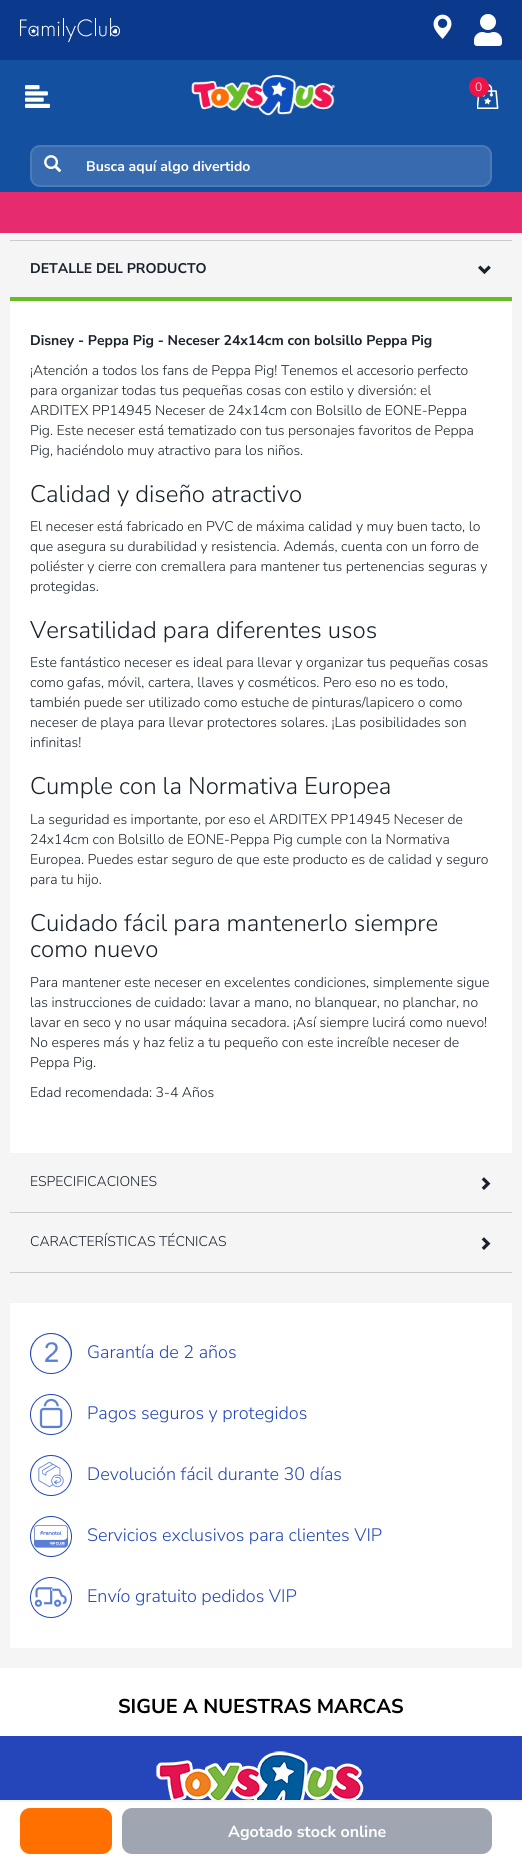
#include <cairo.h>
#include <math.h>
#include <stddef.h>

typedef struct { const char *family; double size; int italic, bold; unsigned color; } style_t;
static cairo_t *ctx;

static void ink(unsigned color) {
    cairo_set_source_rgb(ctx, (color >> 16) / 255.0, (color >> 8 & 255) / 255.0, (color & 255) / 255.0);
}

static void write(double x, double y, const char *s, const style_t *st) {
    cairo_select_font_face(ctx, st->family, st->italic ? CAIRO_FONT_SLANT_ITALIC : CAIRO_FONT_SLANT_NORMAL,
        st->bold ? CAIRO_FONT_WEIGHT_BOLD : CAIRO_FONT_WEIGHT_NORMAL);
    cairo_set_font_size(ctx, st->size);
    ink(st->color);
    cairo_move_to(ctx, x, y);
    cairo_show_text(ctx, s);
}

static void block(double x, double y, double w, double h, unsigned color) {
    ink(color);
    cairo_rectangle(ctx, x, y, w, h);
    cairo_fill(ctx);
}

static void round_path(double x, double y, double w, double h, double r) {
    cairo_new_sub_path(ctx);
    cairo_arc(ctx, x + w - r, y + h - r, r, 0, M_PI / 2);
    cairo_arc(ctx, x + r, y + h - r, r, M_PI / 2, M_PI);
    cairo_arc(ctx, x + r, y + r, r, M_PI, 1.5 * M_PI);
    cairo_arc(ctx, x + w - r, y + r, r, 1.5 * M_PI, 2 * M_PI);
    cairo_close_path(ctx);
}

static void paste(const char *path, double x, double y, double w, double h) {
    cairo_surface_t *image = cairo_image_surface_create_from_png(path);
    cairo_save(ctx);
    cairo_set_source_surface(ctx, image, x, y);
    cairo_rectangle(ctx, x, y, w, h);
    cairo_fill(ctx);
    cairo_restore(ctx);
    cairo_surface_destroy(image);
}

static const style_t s1 = {"Nunito Sans Light", 12, 0, 0, 0xffffff};
static const style_t s2 = {"Nunito Sans", 14, 0, 1, 0xffffff};
static const style_t s3 = {"Nunito Sans", 14, 0, 1, 0x19212b};
static const style_t s4 = {"Nunito Sans Light", 14, 0, 0, 0x19212b};
static const style_t s5 = {"Nunito Sans Light", 24, 0, 0, 0x19212b};
static const style_t s6 = {"Nunito Sans Light", 18, 0, 0, 0x2446ba};
static const style_t s7 = {"Nunito Sans", 16, 0, 1, 0xffffff};
static const style_t s8 = {"Nunito Sans", 20, 0, 1, 0x000000};

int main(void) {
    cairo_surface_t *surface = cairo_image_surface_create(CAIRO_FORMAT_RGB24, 522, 1860);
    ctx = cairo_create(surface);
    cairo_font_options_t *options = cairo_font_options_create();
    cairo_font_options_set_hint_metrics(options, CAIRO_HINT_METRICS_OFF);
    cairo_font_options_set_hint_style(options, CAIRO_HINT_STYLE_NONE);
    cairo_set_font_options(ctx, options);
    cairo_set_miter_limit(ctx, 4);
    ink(0xffffff);
    cairo_paint(ctx);
    block(0, 60, 522, 132, 0x1450a0);
    block(0, 0, 522, 60, 0x0b3a8c);
    paste("pic1.png", 20, 17, 100, 26);
    paste("pic2.png", 433, 14, 19, 25);
    paste("pic3.png", 474, 14, 28, 32);
    paste("pic4.png", 25, 85, 25, 23);
    paste("pic5.png", 191, 75, 144, 41);
    paste("pic6.png", 477, 84, 22, 25);
    ink(0xf01446);
    cairo_arc(ctx, 479, 87, 10, 0, 2 * M_PI);
    cairo_fill(ctx);
    write(475, 91, "0", &s1);
    ink(0x376aae);
    round_path(31, 146, 460, 40, 9);
    cairo_fill_preserve(ctx);
    ink(0x4c7ab7);
    cairo_stroke(ctx);
    paste("pic7.png", 44, 155, 18, 18);
    write(86, 171, "Busca aquí algo divertido", &s2);
    block(0, 192, 522, 41, 0xe72b6f);
    block(0, 233, 522, 1435, 0xf5f5f5);
    block(10, 240, 502, 1, 0xcccccc);
    block(10, 297, 502, 4, 0x66bc29);
    write(30, 273, "DETALLE DEL PRODUCTO", &s3);
    paste("pic8.png", 478, 265, 13, 10);
    block(10, 301, 502, 852, 0xffffff);
    write(30, 345, "Disney - Peppa Pig - Neceser 24x14cm con bolsillo Peppa Pig", &s3);
    write(30, 375, "¡Atención a todos los fans de Peppa Pig! Tenemos el accesorio perfecto", &s4);
    write(30, 395, "para organizar todas tus pequeñas cosas con estilo y diversión: el", &s4);
    write(30, 415, "ARDITEX PP14945 Neceser de 24x14cm con Bolsillo de EONE-Peppa", &s4);
    write(30, 435, "Pig. Este neceser está tematizado con tus personajes favoritos de Peppa", &s4);
    write(30, 455, "Pig, haciéndolo muy atractivo para los niños.", &s4);
    write(30, 502, "Calidad y diseño atractivo", &s5);
    write(30, 531, "El neceser está fabricado en PVC de máxima calidad y muy buen tacto, lo", &s4);
    write(30, 551, "que asegura su durabilidad y resistencia. Además, cuenta con un forro de", &s4);
    write(30, 571, "poliéster y cierre con cremallera para mantener tus pertenencias seguras y", &s4);
    write(30, 591, "protegidas.", &s4);
    write(30, 638, "Versatilidad para diferentes usos", &s5);
    write(30, 667, "Este fantástico neceser es ideal para llevar y organizar tus pequeñas cosas", &s4);
    write(30, 687, "como gafas, móvil, cartera, llaves y cosméticos. Pero eso no es todo,", &s4);
    write(30, 707, "también puede ser utilizado como estuche de pinturas/lapicero o como", &s4);
    write(30, 727, "neceser de playa para llevar protectores solares. ¡Las posibilidades son", &s4);
    write(30, 747, "infinitas!", &s4);
    write(30, 794, "Cumple con la Normativa Europea", &s5);
    write(30, 824, "La seguridad es importante, por eso el ARDITEX PP14945 Neceser de", &s4);
    write(30, 844, "24x14cm con Bolsillo de EONE-Peppa Pig cumple con la Normativa", &s4);
    write(30, 864, "Europea. Puedes estar seguro de que este producto es de calidad y seguro", &s4);
    write(30, 884, "para tu hijo.", &s4);
    write(30, 931, "Cuidado fácil para mantenerlo siempre", &s5);
    write(30, 957, "como nuevo", &s5);
    write(30, 987, "Para mantener este neceser en excelentes condiciones, simplemente sigue", &s4);
    write(30, 1007, "las instrucciones de cuidado: lavar a mano, no blanquear, no planchar, no", &s4);
    write(30, 1027, "lavar en seco y no usar máquina secadora. ¡Así siempre lucirá como nuevo!", &s4);
    write(30, 1047, "No esperes más y haz feliz a tu pequeño con este increíble neceser de", &s4);
    write(30, 1067, "Peppa Pig.", &s4);
    write(30, 1097, "Edad recomendada: 3-4 Años", &s4);
    block(10, 1212, 502, 1, 0xcccccc);
    write(30, 1186, "ESPECIFICACIONES", &s4);
    paste("pic9.png", 481, 1177, 10, 13);
    block(10, 1272, 502, 1, 0xcccccc);
    write(30, 1246, "CARACTERÍSTICAS TÉCNICAS", &s4);
    paste("pic9.png", 481, 1237, 10, 13);
    block(10, 1303, 502, 345, 0xffffff);
    paste("pic10.png", 30, 1333, 42, 41);
    write(87, 1358, "Garantía de 2 años", &s6);
    paste("pic11.png", 30, 1394, 42, 41);
    write(87, 1419, "Pagos seguros y protegidos", &s6);
    paste("pic12.png", 30, 1455, 42, 41);
    write(87, 1480, "Devolución fácil durante 30 días", &s6);
    paste("pic13.png", 30, 1516, 42, 41);
    write(87, 1541, "Servicios exclusivos para clientes VIP", &s6);
    paste("pic14.png", 30, 1577, 42, 41);
    write(87, 1602, "Envío gratuito pedidos VIP", &s6);
    block(0, 1800, 522, 2, 0xf5f5f5);
    ink(0xff7000);
    round_path(21.5, 1809.5, 89, 43, 8.5);
    cairo_fill_preserve(ctx);
    cairo_set_line_width(ctx, 3);
    cairo_stroke(ctx);
    ink(0x9fa6b2);
    round_path(123.5, 1809.5, 367, 43, 8.5);
    cairo_fill_preserve(ctx);
    cairo_stroke(ctx);
    write(228, 1837, "Agotado stock online", &s7);
    write(118, 1713, "SIGUE A NUESTRAS MARCAS", &s8);
    block(0, 1736, 522, 64, 0x2446ba);
    paste("pic15.png", 156, 1751, 209, 49);
    cairo_surface_write_to_png(surface, "screenshot.png");
    cairo_font_options_destroy(options);
    cairo_destroy(ctx);
    cairo_surface_destroy(surface);
    return 0;
}
